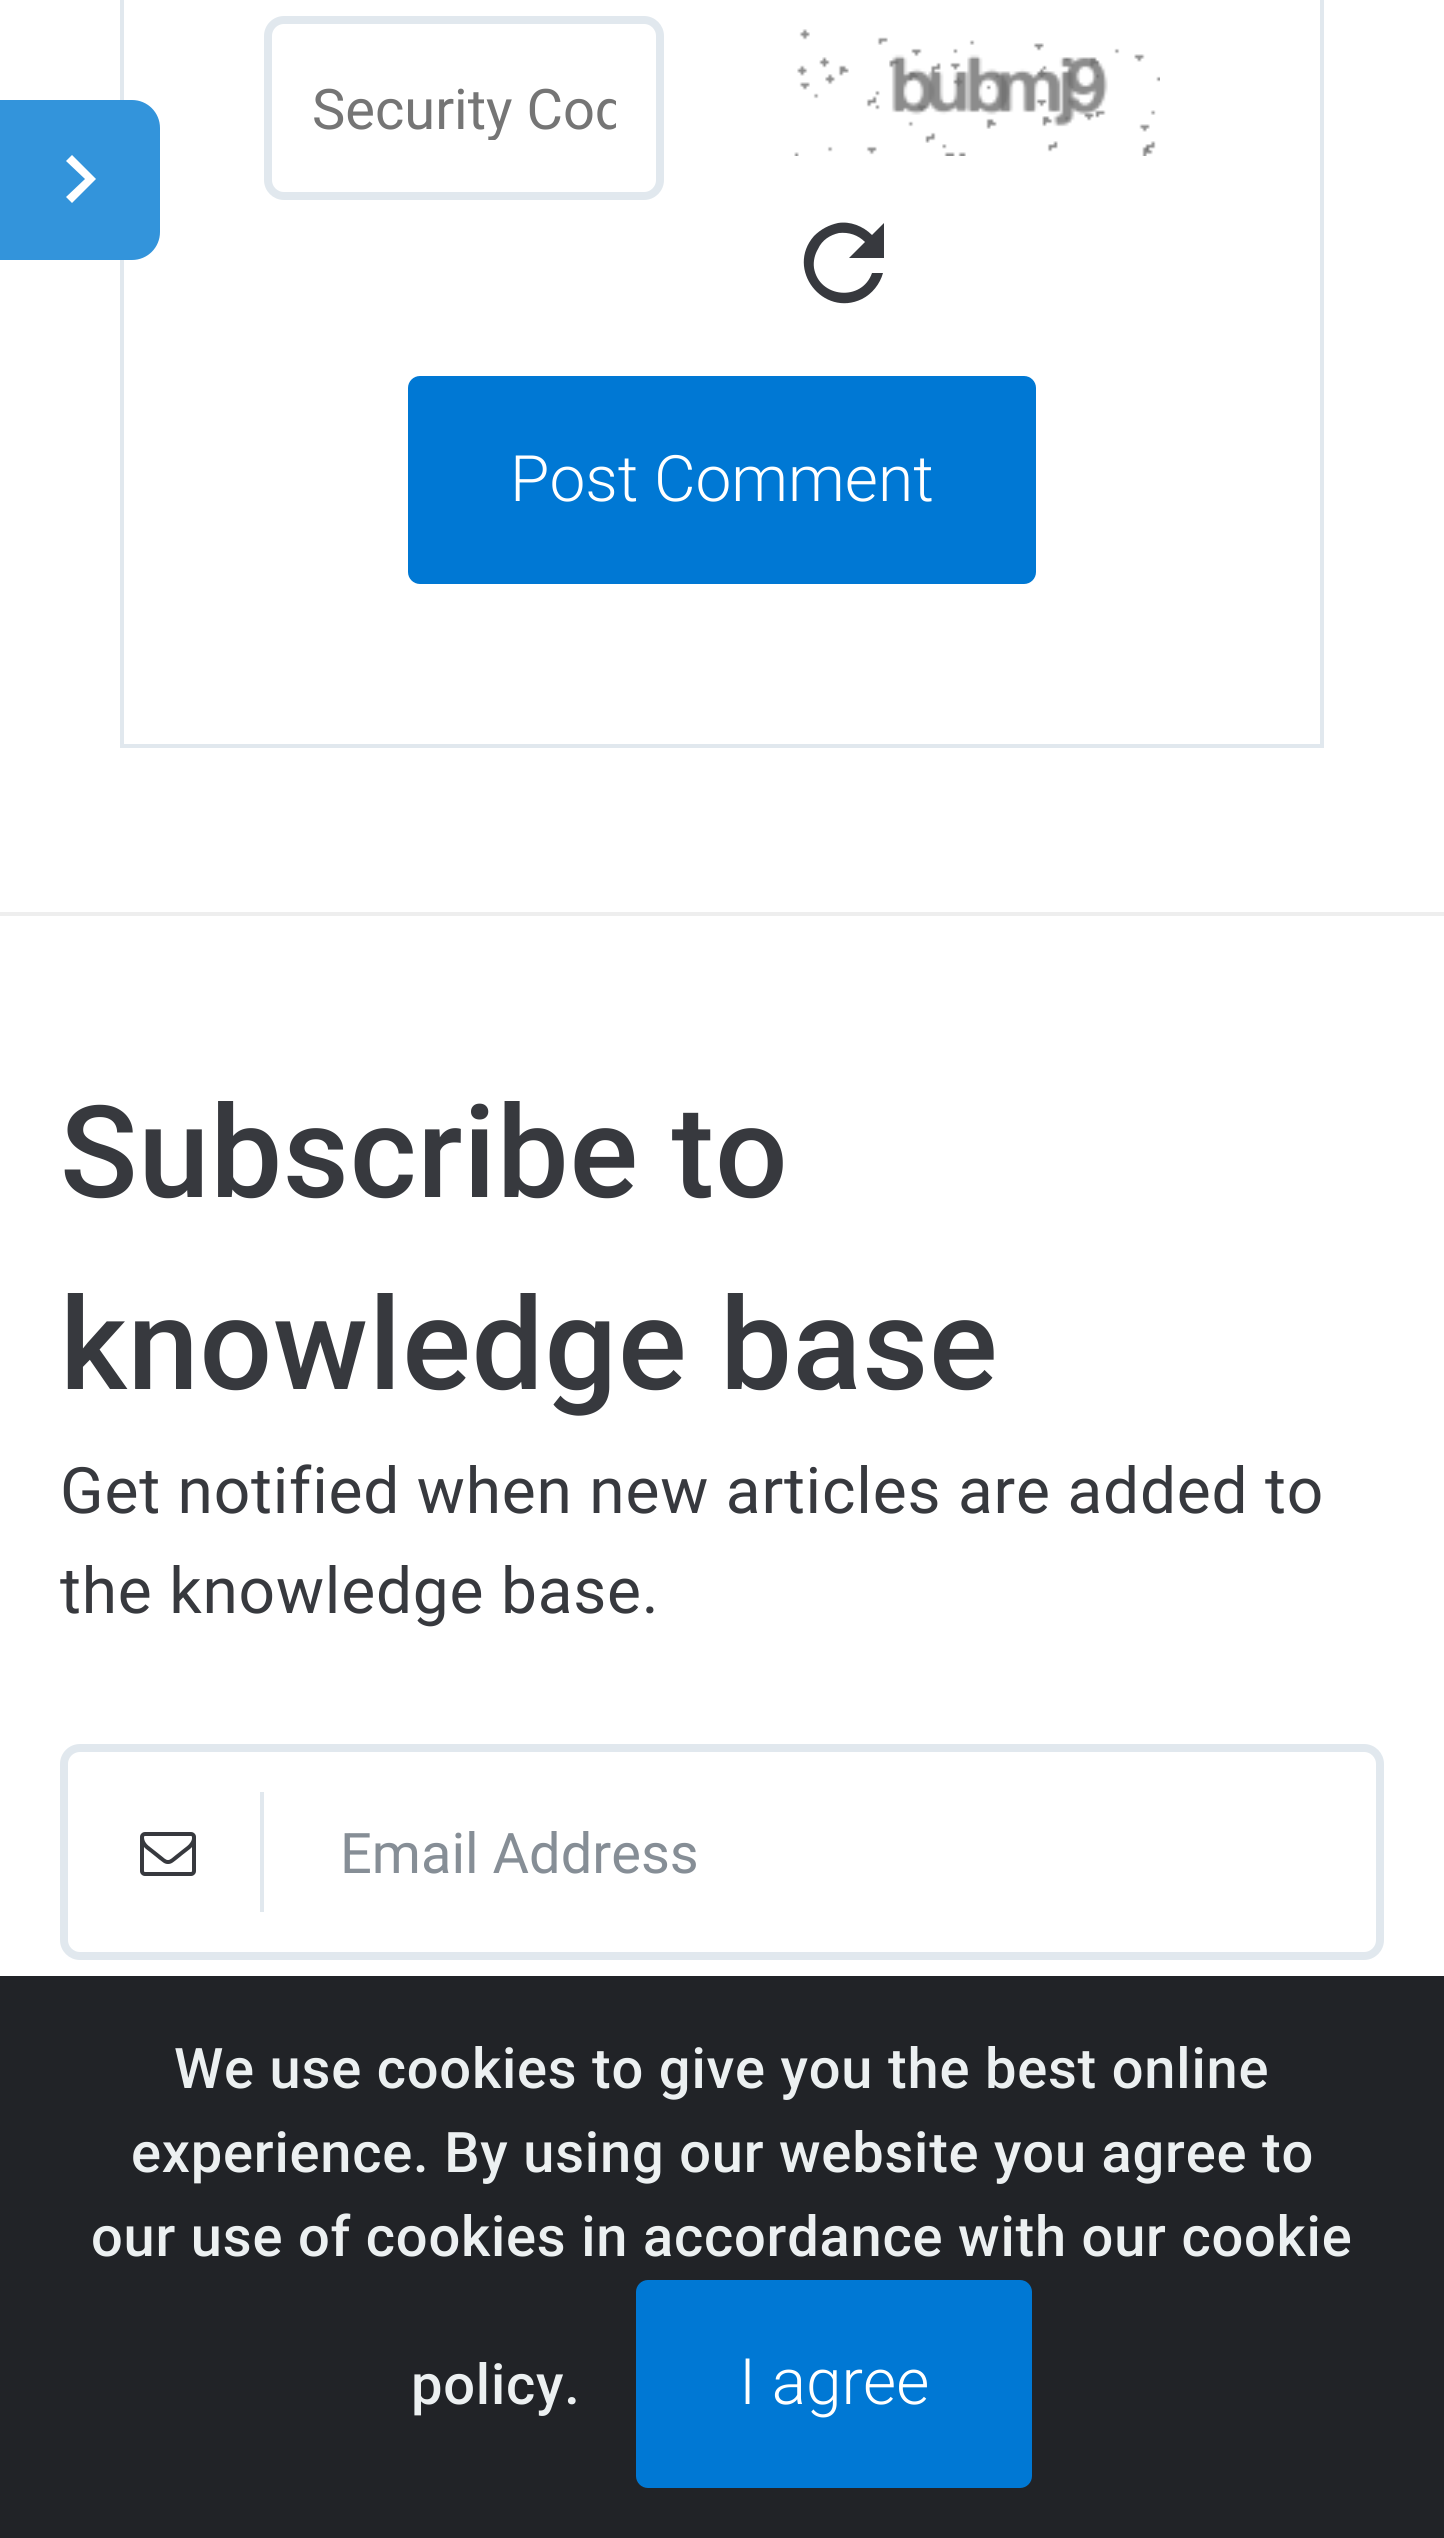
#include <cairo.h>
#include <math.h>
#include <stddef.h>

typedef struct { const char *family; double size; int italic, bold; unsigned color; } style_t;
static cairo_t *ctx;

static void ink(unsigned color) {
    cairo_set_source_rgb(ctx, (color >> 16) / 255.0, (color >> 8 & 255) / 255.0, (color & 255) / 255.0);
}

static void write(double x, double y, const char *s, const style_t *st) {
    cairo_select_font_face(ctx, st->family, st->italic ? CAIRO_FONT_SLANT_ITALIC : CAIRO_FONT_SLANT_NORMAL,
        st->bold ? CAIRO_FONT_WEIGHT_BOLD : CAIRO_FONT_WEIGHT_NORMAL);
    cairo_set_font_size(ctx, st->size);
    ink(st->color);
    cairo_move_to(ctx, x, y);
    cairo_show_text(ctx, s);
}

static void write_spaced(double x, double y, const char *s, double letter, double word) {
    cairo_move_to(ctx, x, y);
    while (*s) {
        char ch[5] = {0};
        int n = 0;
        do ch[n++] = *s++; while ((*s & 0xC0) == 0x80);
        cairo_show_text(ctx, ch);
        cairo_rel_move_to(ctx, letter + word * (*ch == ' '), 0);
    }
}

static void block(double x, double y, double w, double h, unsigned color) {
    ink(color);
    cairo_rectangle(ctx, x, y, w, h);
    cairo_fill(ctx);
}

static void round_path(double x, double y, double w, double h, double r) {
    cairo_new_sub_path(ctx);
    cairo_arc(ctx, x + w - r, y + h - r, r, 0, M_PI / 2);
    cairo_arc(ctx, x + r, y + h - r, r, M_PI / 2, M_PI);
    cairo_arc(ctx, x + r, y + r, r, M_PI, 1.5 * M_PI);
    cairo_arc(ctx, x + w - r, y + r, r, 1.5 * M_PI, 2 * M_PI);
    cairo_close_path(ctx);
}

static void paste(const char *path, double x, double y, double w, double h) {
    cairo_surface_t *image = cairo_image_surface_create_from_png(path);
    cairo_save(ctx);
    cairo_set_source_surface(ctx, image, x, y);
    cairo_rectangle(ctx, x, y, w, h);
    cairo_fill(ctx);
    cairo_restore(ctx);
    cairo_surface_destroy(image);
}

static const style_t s1 = {"Roboto", 56, 0, 0, 0x757575};
static const style_t s2 = {"Roboto Light", 64, 0, 0, 0xffffff};
static const style_t s3 = {"Roboto", 56, 0, 0, 0x868e96};

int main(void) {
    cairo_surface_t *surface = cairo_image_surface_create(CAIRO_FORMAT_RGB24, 1444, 2538);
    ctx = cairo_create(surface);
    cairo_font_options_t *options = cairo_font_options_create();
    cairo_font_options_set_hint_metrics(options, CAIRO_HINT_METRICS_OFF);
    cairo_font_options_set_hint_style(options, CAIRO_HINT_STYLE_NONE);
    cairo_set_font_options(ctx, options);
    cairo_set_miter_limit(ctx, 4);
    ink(0xffffff);
    cairo_paint(ctx);
    block(1320, 0, 4, 748, 0xe1e8ee);
    block(120, 744, 1204, 4, 0xe1e8ee);
    block(120, 0, 4, 748, 0xe1e8ee);
    ink(0x3394db);
    cairo_new_path(ctx);
    cairo_move_to(ctx, 0, 100);
    cairo_line_to(ctx, 132, 100);
    cairo_curve_to(ctx, 147.5, 100, 160, 112.5, 160, 128);
    cairo_line_to(ctx, 160, 232);
    cairo_curve_to(ctx, 160, 247.5, 147.5, 260, 132, 260);
    cairo_line_to(ctx, 0, 260);
    cairo_close_path(ctx);
    cairo_fill(ctx);
    ink(0xffffff);
    cairo_new_path(ctx);
    cairo_move_to(ctx, 66, 197);
    cairo_line_to(ctx, 85, 179);
    cairo_line_to(ctx, 66, 161);
    cairo_line_to(ctx, 72, 155);
    cairo_line_to(ctx, 96, 179);
    cairo_line_to(ctx, 72, 203);
    cairo_close_path(ctx);
    cairo_fill(ctx);
    round_path(268, 20, 392, 176, 16);
    ink(0xe1e8ee);
    cairo_set_line_width(ctx, 8);
    cairo_stroke(ctx);
    cairo_save(ctx);
    cairo_rectangle(ctx, 312, 76, 304, 64);
    cairo_clip(ctx);
    write(312, 129, "Security Cod", &s1);
    cairo_restore(ctx);
    paste("pic1.png", 794, 29, 366, 127);
    ink(0x37393e);
    cairo_new_path(ctx);
    cairo_move_to(ctx, 872, 235);
    cairo_line_to(ctx, 884, 223);
    cairo_line_to(ctx, 884, 258);
    cairo_line_to(ctx, 849, 258);
    cairo_line_to(ctx, 865, 242);
    cairo_curve_to(ctx, 858, 235, 849, 232, 839, 233);
    cairo_curve_to(ctx, 830, 235, 822, 240, 818, 249);
    cairo_curve_to(ctx, 815, 254, 813, 261, 814, 268);
    cairo_curve_to(ctx, 819, 298, 862, 302, 872, 273);
    cairo_line_to(ctx, 883, 273);
    cairo_curve_to(ctx, 880, 284, 872, 294, 862, 299);
    cairo_curve_to(ctx, 823, 318, 785, 269, 814, 236);
    cairo_curve_to(ctx, 821, 229, 829, 225, 838, 223);
    cairo_curve_to(ctx, 850, 221, 863, 226, 872, 235);
    cairo_close_path(ctx);
    cairo_fill(ctx);
    ink(0x0078d4);
    round_path(408, 376, 628, 208, 12);
    cairo_fill(ctx);
    write(510, 501, "Post Comment", &s2);
    block(0, 912, 1444, 4, 0xeeeeee);
    cairo_select_font_face(ctx, "Roboto Medium", CAIRO_FONT_SLANT_NORMAL, CAIRO_FONT_WEIGHT_NORMAL);
    cairo_set_font_size(ctx, 128);
    ink(0x37393e);
    write_spaced(60, 1197, "Subscribe to", 0.8, 0);
    write_spaced(60, 1389, "knowledge base", 0.8, 0);
    cairo_select_font_face(ctx, "Roboto", CAIRO_FONT_SLANT_NORMAL, CAIRO_FONT_WEIGHT_NORMAL);
    cairo_set_font_size(ctx, 64);
    write_spaced(60, 1513, "Get notified when new articles are added to", 0.8, 0);
    write_spaced(60, 1613, "the knowledge base.", 0.8, 0);
    round_path(64, 1748, 1316, 208, 16);
    ink(0xe1e8ee);
    cairo_stroke(ctx);
    paste("pic2.png", 140, 1832, 56, 44);
    block(260, 1792, 4, 120, 0xe1e8ee);
    write(340, 1873, "Email Address", &s3);
    block(0, 1976, 1444, 562, 0x212327);
    cairo_select_font_face(ctx, "Roboto Medium", CAIRO_FONT_SLANT_NORMAL, CAIRO_FONT_WEIGHT_NORMAL);
    ink(0xecf0f1);
    write_spaced(174, 2088, "We use cookies to give you the best online", 0.8, 0);
    write_spaced(131, 2172, "experience. By using our website you agree to", 0.8, 0);
    write_spaced(91, 2256, "our use of cookies in accordance with our cookie", 0.8, 0);
    write_spaced(411, 2404, "policy.", 0.8, 0);
    ink(0x0078d4);
    round_path(636, 2280, 396, 208, 12);
    cairo_fill(ctx);
    write(739, 2404, "I agree", &s2);
    cairo_surface_write_to_png(surface, "screenshot.png");
    cairo_font_options_destroy(options);
    cairo_destroy(ctx);
    cairo_surface_destroy(surface);
    return 0;
}
